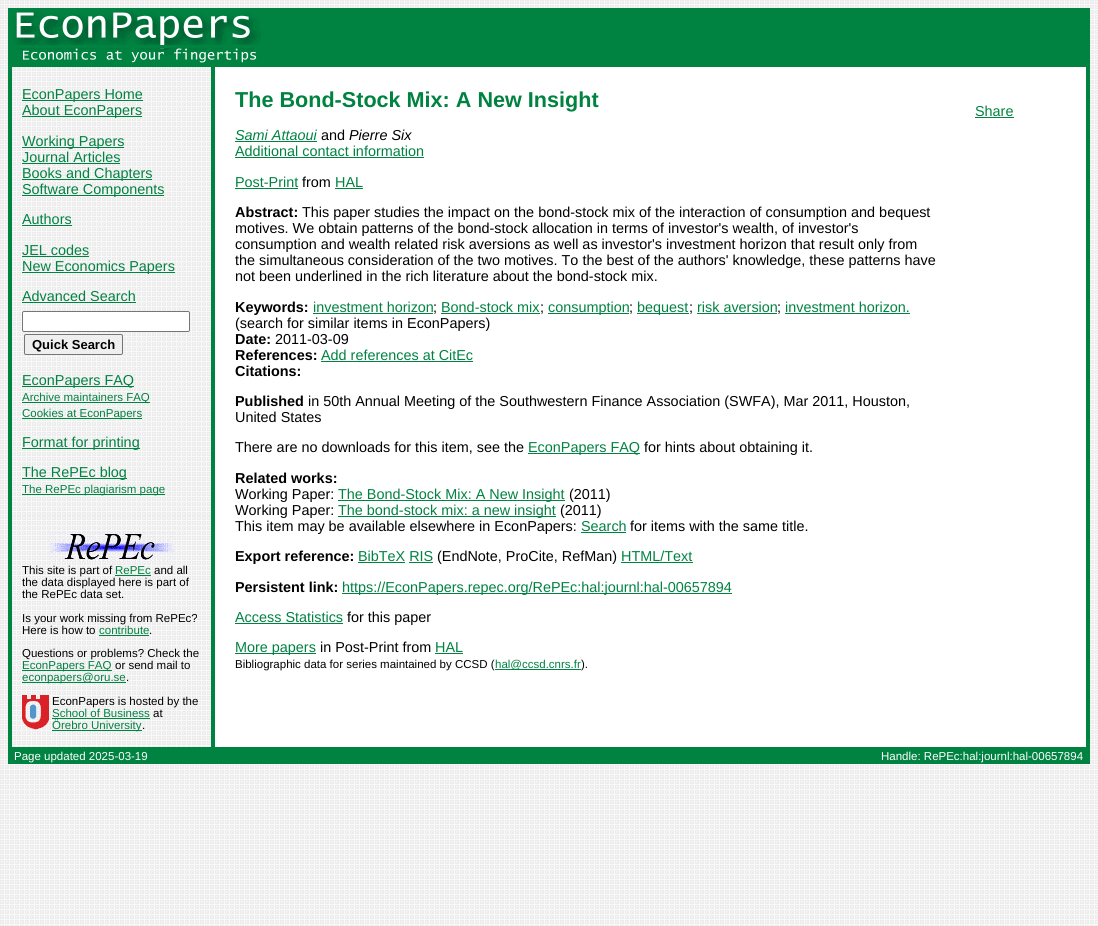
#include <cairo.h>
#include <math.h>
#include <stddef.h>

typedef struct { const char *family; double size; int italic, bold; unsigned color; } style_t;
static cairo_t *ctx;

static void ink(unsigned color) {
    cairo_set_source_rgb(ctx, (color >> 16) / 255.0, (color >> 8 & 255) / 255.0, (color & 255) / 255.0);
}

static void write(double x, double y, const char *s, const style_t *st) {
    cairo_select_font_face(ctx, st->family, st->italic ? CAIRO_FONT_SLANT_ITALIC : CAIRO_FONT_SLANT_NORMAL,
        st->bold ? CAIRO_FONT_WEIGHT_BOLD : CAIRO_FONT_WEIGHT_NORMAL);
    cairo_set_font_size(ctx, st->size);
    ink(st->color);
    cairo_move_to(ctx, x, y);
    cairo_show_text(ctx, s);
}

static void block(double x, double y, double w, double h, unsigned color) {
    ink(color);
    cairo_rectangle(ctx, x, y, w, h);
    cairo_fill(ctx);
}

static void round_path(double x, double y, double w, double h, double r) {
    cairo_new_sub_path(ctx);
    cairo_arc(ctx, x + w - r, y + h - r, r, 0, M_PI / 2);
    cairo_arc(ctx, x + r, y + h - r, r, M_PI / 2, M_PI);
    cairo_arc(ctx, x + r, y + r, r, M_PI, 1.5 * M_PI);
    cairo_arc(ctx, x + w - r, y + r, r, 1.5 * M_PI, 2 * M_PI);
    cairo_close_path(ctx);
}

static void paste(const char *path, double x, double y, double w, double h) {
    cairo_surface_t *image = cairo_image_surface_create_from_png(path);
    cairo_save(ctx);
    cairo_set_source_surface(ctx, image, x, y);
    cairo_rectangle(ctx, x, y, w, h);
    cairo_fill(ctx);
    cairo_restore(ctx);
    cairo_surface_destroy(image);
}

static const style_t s1 = {"Liberation Sans", 14.4, 0, 0, 0x008241};
static const style_t s2 = {"Liberation Sans", 13, 0, 1, 0x000000};
static const style_t s3 = {"Liberation Sans", 11.5, 0, 0, 0x008241};
static const style_t s4 = {"Liberation Sans", 21.6, 0, 1, 0x008241};
static const style_t s5 = {"Liberation Sans", 14.4, 1, 0, 0x008241};
static const style_t s6 = {"Liberation Sans", 14.4, 0, 0, 0x000000};
static const style_t s7 = {"Liberation Sans", 14.4, 1, 0, 0x000000};
static const style_t s8 = {"Liberation Sans", 14.4, 0, 1, 0x000000};
static const style_t s9 = {"Liberation Sans", 11.5, 0, 0, 0x000000};
static const style_t s10 = {"Liberation Sans", 11.5, 0, 0, 0xffffff};

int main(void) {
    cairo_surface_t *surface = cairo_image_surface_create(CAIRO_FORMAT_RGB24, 1098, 926);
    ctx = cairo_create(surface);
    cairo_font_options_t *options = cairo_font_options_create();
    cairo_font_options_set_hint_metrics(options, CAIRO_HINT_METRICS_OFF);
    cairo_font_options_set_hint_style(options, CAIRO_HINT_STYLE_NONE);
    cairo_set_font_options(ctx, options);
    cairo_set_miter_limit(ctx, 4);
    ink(0xffffff);
    cairo_paint(ctx);
    paste("pic1.png", 0, 0, 1098, 926);
    block(8, 8, 4, 756, 0x008241);
    block(12, 8, 1074, 40, 0x008241);
    paste("pic2.png", 13, 10, 249, 35);
    block(1086, 8, 4, 756, 0x008241);
    block(12, 48, 1074, 19, 0x008241);
    paste("pic3.png", 18, 48, 239, 15);
    paste("pic4.png", 12, 67, 199, 449);
    block(22, 100, 121, 1, 0x008241);
    write(22, 99, "EconPapers Home", &s1);
    block(22, 116, 120, 1, 0x008241);
    write(22, 115, "About EconPapers", &s1);
    block(22, 147, 102, 1, 0x008241);
    write(22, 146, "Working Papers", &s1);
    write(22, 162, "Journal Articles", &s1);
    block(22, 163, 98, 1, 0x008241);
    block(22, 179, 130, 1, 0x008241);
    write(22, 178, "Books and Chapters", &s1);
    block(22, 195, 142, 1, 0x008241);
    write(22, 194, "Software Components", &s1);
    write(22, 224, "Authors", &s1);
    block(22, 225, 50, 1, 0x008241);
    write(22, 255, "JEL codes", &s1);
    block(22, 256, 67, 1, 0x008241);
    block(22, 272, 153, 1, 0x008241);
    write(22, 271, "New Economics Papers", &s1);
    write(22, 301, "Advanced Search", &s1);
    block(22, 302, 114, 1, 0x008241);
    ink(0xffffff);
    round_path(22.5, 311.5, 167, 20, 1.5);
    cairo_fill_preserve(ctx);
    ink(0x767676);
    cairo_set_line_width(ctx, 1);
    cairo_stroke(ctx);
    ink(0xefefef);
    round_path(24.5, 334.5, 98, 20, 1.5);
    cairo_fill_preserve(ctx);
    ink(0x767676);
    cairo_stroke(ctx);
    write(32, 349, "Quick Search", &s2);
    block(22, 386, 112, 1, 0x008241);
    write(22, 385, "EconPapers FAQ", &s1);
    block(22, 402, 128, 1, 0x008241);
    write(22, 401, "Archive maintainers FAQ", &s3);
    block(22, 418, 120, 1, 0x008241);
    write(22, 417, "Cookies at EconPapers", &s3);
    block(22, 448, 118, 1, 0x008241);
    write(22, 447, "Format for printing", &s1);
    block(22, 478, 105, 1, 0x008241);
    write(22, 477, "The RePEc blog", &s1);
    block(22, 494, 143, 1, 0x008241);
    write(22, 493, "The RePEc plagiarism page", &s3);
    block(211, 67, 4, 680, 0x008241);
    block(215, 67, 871, 680, 0xffffff);
    write(235, 107, "The Bond-Stock Mix: A New Insight", &s4);
    write(235, 140, "Sami Attaoui", &s5);
    block(235, 141, 82, 1, 0x008241);
    write(321, 140, "and", &s6);
    write(349, 140, "Pierre Six", &s7);
    write(235, 156, "Additional contact information", &s1);
    block(235, 157, 189, 1, 0x008241);
    write(235, 187, "Post-Print", &s1);
    block(235, 188, 63, 1, 0x008241);
    write(302, 187, "from", &s6);
    write(335, 187, "HAL", &s1);
    block(335, 188, 28, 1, 0x008241);
    write(235, 217, "Abstract:", &s8);
    write(302, 217, "This paper studies the impact on the bond-stock mix of the interaction of consumption and bequest", &s6);
    write(235, 233, "motives. We obtain patterns of the bond-stock allocation in terms of investor's wealth, of investor's", &s6);
    write(235, 249, "consumption and wealth related risk aversions as well as investor's investment horizon that result only from", &s6);
    write(235, 265, "the simultaneous consideration of the two motives. To the best of the authors' knowledge, these patterns have", &s6);
    write(235, 281, "not been underlined in the rich literature about the bond-stock mix.", &s6);
    write(235, 312, "Keywords:", &s8);
    write(313, 312, "investment horizon", &s1);
    block(313, 313, 120, 1, 0x008241);
    write(433, 312, ";", &s6);
    write(441, 312, "Bond-stock mix", &s1);
    block(441, 313, 99, 1, 0x008241);
    write(540, 312, ";", &s6);
    block(548, 313, 81, 1, 0x008241);
    write(548, 312, "consumption", &s1);
    write(629, 312, ";", &s6);
    block(637, 313, 52, 1, 0x008241);
    write(637, 312, "bequest", &s1);
    write(689, 312, ";", &s6);
    write(697, 312, "risk aversion", &s1);
    block(697, 313, 80, 1, 0x008241);
    write(777, 312, ";", &s6);
    write(785, 312, "investment horizon.", &s1);
    block(785, 313, 125, 1, 0x008241);
    write(235, 328, "(search for similar items in EconPapers)", &s6);
    write(235, 344, "Date:", &s8);
    write(275, 344, "2011-03-09", &s6);
    write(235, 360, "References:", &s8);
    write(321, 360, "Add references at CitEc", &s1);
    block(321, 361, 152, 1, 0x008241);
    write(235, 376, "Citations:", &s8);
    write(235, 406, "Published", &s8);
    write(308, 406, "in 50th Annual Meeting of the Southwestern Finance Association (SWFA), Mar 2011, Houston,", &s6);
    write(235, 422, "United States", &s6);
    write(235, 452, "There are no downloads for this item, see the", &s6);
    block(528, 453, 112, 1, 0x008241);
    write(528, 452, "EconPapers FAQ", &s1);
    write(644, 452, "for hints about obtaining it.", &s6);
    write(235, 483, "Related works:", &s8);
    write(235, 499, "Working Paper:", &s6);
    block(338, 500, 227, 1, 0x008241);
    write(338, 499, "The Bond-Stock Mix: A New Insight", &s1);
    write(569, 499, "(2011)", &s6);
    write(235, 515, "Working Paper:", &s6);
    block(338, 516, 218, 1, 0x008241);
    write(338, 515, "The bond-stock mix: a new insight", &s1);
    write(560, 515, "(2011)", &s6);
    write(235, 531, "This item may be available elsewhere in EconPapers:", &s6);
    write(581, 531, "Search", &s1);
    block(581, 532, 45, 1, 0x008241);
    write(630, 531, "for items with the same title.", &s6);
    write(235, 561, "Export reference:", &s8);
    write(358, 561, "BibTeX RIS", &s1);
    block(358, 562, 47, 1, 0x008241);
    write(437, 561, "(EndNote, ProCite, RefMan)", &s6);
    write(621, 561, "HTML/Text", &s1);
    block(621, 562, 72, 1, 0x008241);
    block(409, 562, 24, 1, 0x008241);
    write(235, 592, "Persistent link:", &s8);
    block(342, 593, 390, 1, 0x008241);
    write(342, 592, "https://EconPapers.repec.org/RePEc:hal:journl:hal-00657894", &s1);
    write(235, 622, "Access Statistics", &s1);
    block(235, 623, 108, 1, 0x008241);
    write(347, 622, "for this paper", &s6);
    block(235, 653, 81, 1, 0x008241);
    write(235, 652, "More papers", &s1);
    write(320, 652, "in Post-Print from", &s6);
    write(435, 652, "HAL", &s1);
    block(435, 653, 28, 1, 0x008241);
    write(235, 668, "Bibliographic data for series maintained by CCSD (", &s9);
    block(495, 669, 86, 1, 0x008241);
    write(495, 668, "hal@ccsd.cnrs.fr", &s3);
    write(581, 668, ").", &s9);
    write(975, 116, "Share", &s1);
    block(975, 117, 39, 1, 0x008241);
    paste("pic5.png", 12, 516, 199, 231);
    paste("pic6.png", 48, 532, 127, 29);
    write(22, 574, "This site is part of", &s9);
    write(115, 574, "RePEc", &s3);
    block(115, 575, 36, 1, 0x008241);
    write(154, 574, "and all", &s9);
    write(22, 586, "the data displayed here is part of", &s9);
    write(22, 598, "the RePEc data set.", &s9);
    write(22, 622, "Is your work missing from RePEc?", &s9);
    write(22, 634, "Here is how to", &s9);
    write(99, 634, "contribute", &s3);
    block(99, 635, 50, 1, 0x008241);
    write(149, 634, ".", &s9);
    write(22, 657, "Questions or problems? Check the", &s9);
    block(22, 670, 90, 1, 0x008241);
    write(22, 669, "EconPapers FAQ", &s3);
    write(115, 669, "or send mail to", &s9);
    block(22, 682, 104, 1, 0x008241);
    write(22, 681, "econpapers@oru.se", &s3);
    write(126, 681, ".", &s9);
    paste("pic7.png", 22, 695, 27, 35);
    write(52, 705, "EconPapers is hosted by the", &s9);
    write(52, 717, "School of Business", &s3);
    block(52, 718, 98, 1, 0x008241);
    write(153, 717, "at", &s9);
    block(52, 730, 90, 1, 0x008241);
    write(52, 729, "Örebro University", &s3);
    write(142, 729, ".", &s9);
    block(12, 747, 1074, 17, 0x008241);
    write(14, 760, "Page updated 2025-03-19", &s10);
    write(881, 760, "Handle: RePEc:hal:journl:hal-00657894", &s10);
    cairo_surface_write_to_png(surface, "screenshot.png");
    cairo_font_options_destroy(options);
    cairo_destroy(ctx);
    cairo_surface_destroy(surface);
    return 0;
}
